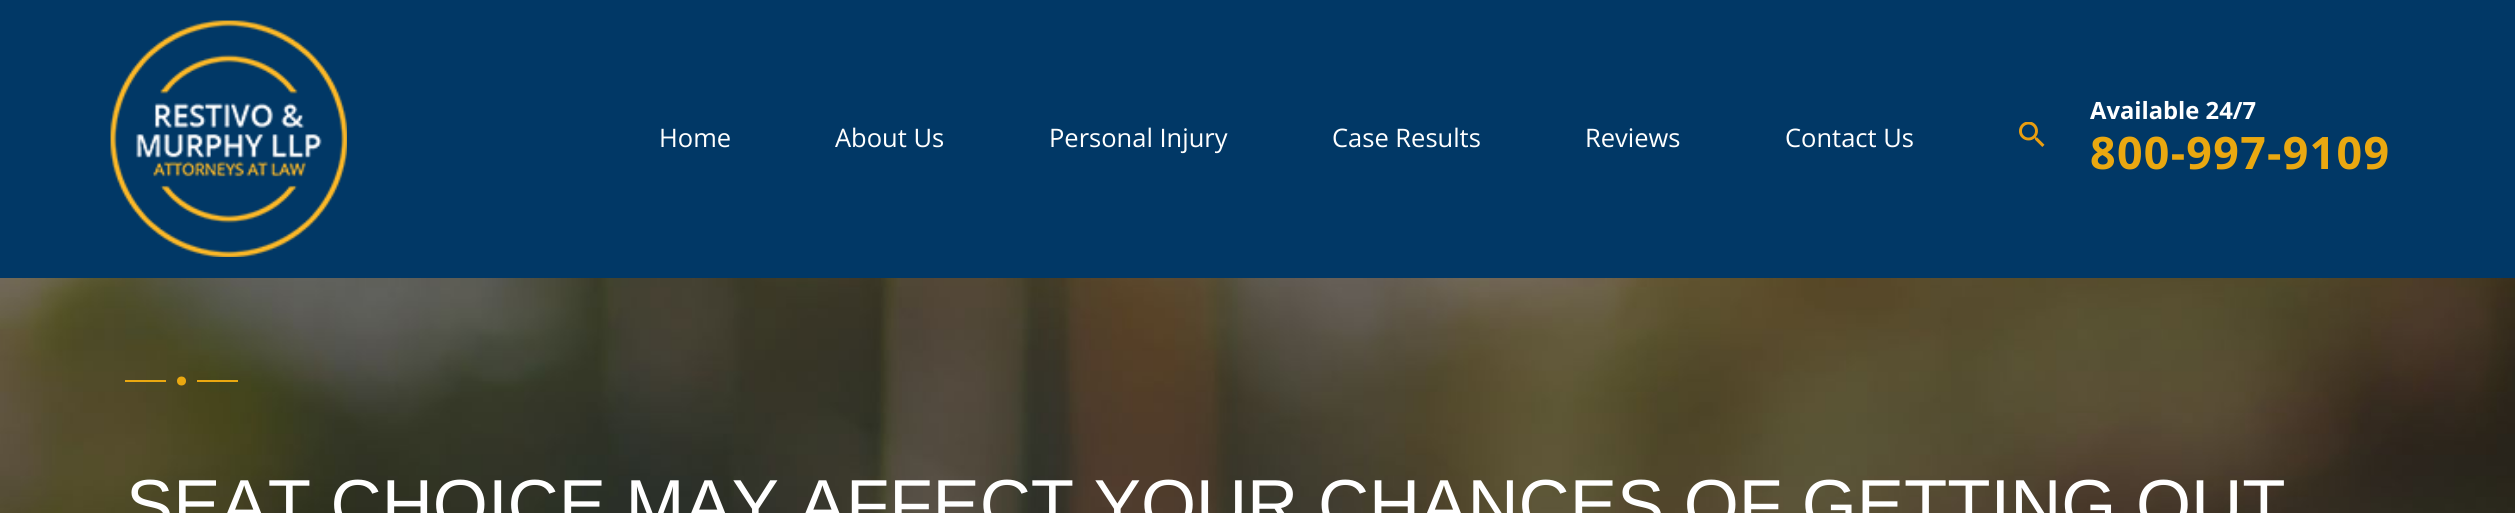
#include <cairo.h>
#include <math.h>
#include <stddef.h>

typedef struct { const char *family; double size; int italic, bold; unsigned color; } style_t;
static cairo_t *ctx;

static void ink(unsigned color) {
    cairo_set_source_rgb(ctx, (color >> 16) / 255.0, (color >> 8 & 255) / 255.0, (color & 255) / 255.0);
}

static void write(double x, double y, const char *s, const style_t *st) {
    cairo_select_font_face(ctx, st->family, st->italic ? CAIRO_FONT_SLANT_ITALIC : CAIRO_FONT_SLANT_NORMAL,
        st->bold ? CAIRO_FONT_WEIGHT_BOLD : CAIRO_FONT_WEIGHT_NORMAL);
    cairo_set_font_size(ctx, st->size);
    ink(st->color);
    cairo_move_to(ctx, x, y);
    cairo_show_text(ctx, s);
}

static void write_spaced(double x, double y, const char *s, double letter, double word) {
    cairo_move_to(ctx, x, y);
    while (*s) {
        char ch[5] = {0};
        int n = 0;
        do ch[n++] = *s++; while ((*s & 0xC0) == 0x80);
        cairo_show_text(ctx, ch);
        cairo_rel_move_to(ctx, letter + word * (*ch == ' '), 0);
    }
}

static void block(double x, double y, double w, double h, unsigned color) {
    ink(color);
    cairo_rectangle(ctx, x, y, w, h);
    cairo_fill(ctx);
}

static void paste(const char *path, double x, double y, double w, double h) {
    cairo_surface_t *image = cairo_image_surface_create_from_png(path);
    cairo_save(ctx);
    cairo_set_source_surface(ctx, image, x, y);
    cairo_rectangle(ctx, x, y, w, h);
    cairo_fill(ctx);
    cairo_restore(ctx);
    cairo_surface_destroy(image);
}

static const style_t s1 = {"Open Sans", 25.5, 0, 0, 0xffffff};
static const style_t s2 = {"Open Sans", 23.75, 0, 1, 0xffffff};
static const style_t s3 = {"Liberation Sans", 70.8, 0, 0, 0xffffff};

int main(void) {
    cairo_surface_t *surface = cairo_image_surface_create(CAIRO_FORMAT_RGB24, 2515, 513);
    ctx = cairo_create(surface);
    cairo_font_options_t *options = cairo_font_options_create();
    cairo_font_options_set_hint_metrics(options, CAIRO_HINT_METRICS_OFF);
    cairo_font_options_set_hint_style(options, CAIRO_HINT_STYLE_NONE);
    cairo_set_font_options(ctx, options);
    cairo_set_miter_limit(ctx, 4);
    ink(0xffffff);
    cairo_paint(ctx);
    block(0, 0, 2515, 278, 0x013866);
    paste("pic1.png", 110, 20, 237, 237);
    write(659, 147, "Home", &s1);
    write(835, 147, "About Us", &s1);
    write(1049, 147, "Personal Injury", &s1);
    write(1332, 147, "Case Results", &s1);
    write(1585, 147, "Reviews", &s1);
    write(1785, 147, "Contact Us", &s1);
    paste("pic2.png", 2019, 122, 26, 25);
    write(2090, 119, "Available 24/7", &s2);
    cairo_set_font_size(ctx, 44.75);
    ink(0xeaa810);
    write_spaced(2090, 169, "800-997-9109", 1.3, 0);
    paste("pic3.png", 0, 278, 2515, 235);
    cairo_new_path(ctx);
    cairo_move_to(ctx, 186, 381);
    cairo_curve_to(ctx, 186, 387, 177, 387, 177, 381);
    cairo_curve_to(ctx, 177, 375, 186, 375, 186, 381);
    cairo_close_path(ctx);
    cairo_move_to(ctx, 125, 382);
    cairo_line_to(ctx, 166, 382);
    cairo_line_to(ctx, 166, 380);
    cairo_line_to(ctx, 125, 380);
    cairo_close_path(ctx);
    cairo_move_to(ctx, 197, 380);
    cairo_line_to(ctx, 197, 382);
    cairo_line_to(ctx, 238, 382);
    cairo_line_to(ctx, 238, 380);
    cairo_close_path(ctx);
    cairo_fill(ctx);
    write(126, 529, "SEAT CHOICE MAY AFFECT YOUR CHANCES OF GETTING OUT", &s3);
    cairo_surface_write_to_png(surface, "screenshot.png");
    cairo_font_options_destroy(options);
    cairo_destroy(ctx);
    cairo_surface_destroy(surface);
    return 0;
}
